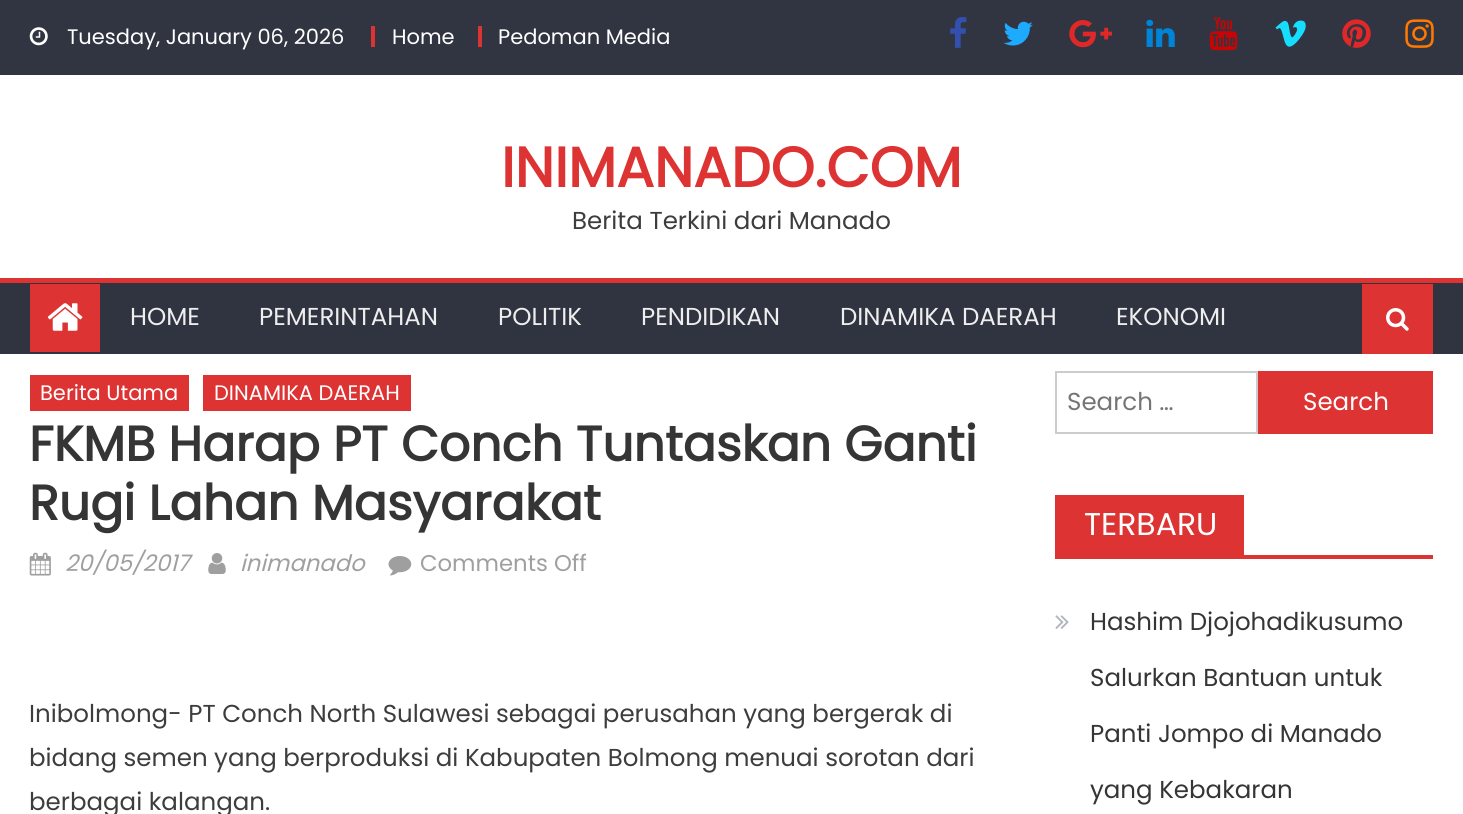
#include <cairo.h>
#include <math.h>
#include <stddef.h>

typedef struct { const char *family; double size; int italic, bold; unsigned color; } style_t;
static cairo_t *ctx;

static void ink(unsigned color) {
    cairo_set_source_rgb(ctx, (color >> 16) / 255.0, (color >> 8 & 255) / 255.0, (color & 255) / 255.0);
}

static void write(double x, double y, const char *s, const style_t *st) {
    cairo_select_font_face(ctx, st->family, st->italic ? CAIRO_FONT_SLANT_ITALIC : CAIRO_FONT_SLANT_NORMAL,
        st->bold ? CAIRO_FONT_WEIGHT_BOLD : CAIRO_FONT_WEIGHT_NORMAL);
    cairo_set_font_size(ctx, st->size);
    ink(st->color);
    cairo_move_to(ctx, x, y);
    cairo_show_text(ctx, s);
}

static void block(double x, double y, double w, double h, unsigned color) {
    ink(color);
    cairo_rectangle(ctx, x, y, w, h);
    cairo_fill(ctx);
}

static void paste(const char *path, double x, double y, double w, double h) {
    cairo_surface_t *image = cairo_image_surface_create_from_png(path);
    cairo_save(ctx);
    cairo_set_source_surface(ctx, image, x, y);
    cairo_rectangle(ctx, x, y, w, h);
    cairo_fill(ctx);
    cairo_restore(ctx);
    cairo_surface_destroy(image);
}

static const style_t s1 = {"Poppins", 21, 0, 0, 0xffffff};
static const style_t s2 = {"Poppins", 56, 0, 1, 0xdd3333};
static const style_t s3 = {"Poppins", 24.5, 0, 0, 0x3d3d3d};
static const style_t s4 = {"Poppins", 24.5, 0, 0, 0xeeeeee};
static const style_t s5 = {"Poppins", 49, 0, 1, 0x353535};
static const style_t s6 = {"Poppins", 22.75, 1, 0, 0x9f9f9f};
static const style_t s7 = {"Poppins", 22.75, 0, 0, 0x9f9f9f};
static const style_t s8 = {"Poppins", 24.5, 0, 0, 0x757575};
static const style_t s9 = {"Poppins", 24.5, 0, 0, 0xffffff};
static const style_t s10 = {"Poppins", 31.5, 0, 0, 0xffffff};
static const style_t s11 = {"Poppins", 24.5, 0, 0, 0x353535};

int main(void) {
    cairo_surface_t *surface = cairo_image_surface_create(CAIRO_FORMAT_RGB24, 1463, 814);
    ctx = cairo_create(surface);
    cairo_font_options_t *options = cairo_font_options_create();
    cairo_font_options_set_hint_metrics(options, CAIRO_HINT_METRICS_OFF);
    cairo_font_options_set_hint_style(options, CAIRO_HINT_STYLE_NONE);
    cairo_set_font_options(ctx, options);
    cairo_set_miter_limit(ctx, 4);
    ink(0xffffff);
    cairo_paint(ctx);
    block(0, 0, 1463, 75, 0x313541);
    paste("pic1.png", 29, 27, 19, 19);
    write(67, 44, "Tuesday, January 06, 2026", &s1);
    block(371, 26, 4, 21, 0xdd3333);
    write(392, 44, "Home", &s1);
    block(478, 26, 4, 21, 0xdd3333);
    write(498, 44, "Pedoman Media", &s1);
    paste("pic2.png", 950, 17, 17, 31);
    paste("pic3.png", 1003, 21, 30, 25);
    paste("pic4.png", 1069, 20, 43, 28);
    paste("pic5.png", 1146, 19, 29, 28);
    paste("pic6.png", 1209, 17, 29, 34);
    paste("pic7.png", 1275, 20, 31, 27);
    paste("pic8.png", 1342, 19, 29, 29);
    paste("pic9.png", 1405, 19, 29, 29);
    write(501, 187, "INIMANADO.COM", &s2);
    write(572, 229, "Berita Terkini dari Manado", &s3);
    block(0, 283, 1463, 71, 0x303440);
    block(0, 278, 1463, 5, 0xdd3333);
    block(30, 284, 70, 68, 0xdd3333);
    paste("pic10.png", 47, 303, 36, 28);
    write(130, 325, "HOME", &s4);
    write(259, 325, "PEMERINTAHAN", &s4);
    write(498, 325, "POLITIK", &s4);
    write(641, 325, "PENDIDIKAN", &s4);
    write(840, 325, "DINAMIKA DAERAH", &s4);
    write(1116, 325, "EKONOMI", &s4);
    block(1362, 284, 71, 70, 0xdd3333);
    paste("pic11.png", 1386, 308, 23, 23);
    block(30, 375, 159, 36, 0xdd3333);
    write(40, 400, "Berita Utama", &s1);
    block(203, 375, 208, 36, 0xdd3333);
    write(214, 400, "DINAMIKA DAERAH", &s1);
    write(29, 461, "FKMB Harap PT Conch Tuntaskan Ganti", &s5);
    write(29, 520, "Rugi Lahan Masyarakat", &s5);
    paste("pic12.png", 29, 552, 22, 24);
    write(65, 571, "20/05/2017", &s6);
    paste("pic13.png", 208, 553, 18, 21);
    write(240, 571, "inimanado", &s6);
    paste("pic14.png", 388, 556, 24, 20);
    write(420, 571, "Comments Off", &s7);
    write(29, 722, "Inibolmong- PT Conch North Sulawesi sebagai perusahan yang bergerak di", &s3);
    write(29, 766, "bidang semen yang berproduksi di Kabupaten Bolmong menuai sorotan dari", &s3);
    write(29, 810, "berbagai kalangan.", &s3);
    cairo_rectangle(ctx, 1056, 372, 201, 61);
    ink(0xcccccc);
    cairo_stroke(ctx);
    write(1067, 410, "Search …", &s8);
    block(1258, 371, 175, 63, 0xdd3333);
    write(1303, 410, "Search", &s9);
    block(1055, 555, 378, 4, 0xdd3333);
    block(1055, 495, 4, 63, 0xdd3333);
    block(1059, 495, 185, 60, 0xdd3333);
    write(1084, 535, "TERBARU", &s10);
    paste("pic15.png", 1055, 615, 14, 14);
    write(1090, 630, "Hashim Djojohadikusumo", &s11);
    write(1090, 686, "Salurkan Bantuan untuk", &s11);
    write(1090, 742, "Panti Jompo di Manado", &s11);
    write(1090, 798, "yang Kebakaran", &s11);
    cairo_surface_write_to_png(surface, "screenshot.png");
    cairo_font_options_destroy(options);
    cairo_destroy(ctx);
    cairo_surface_destroy(surface);
    return 0;
}
